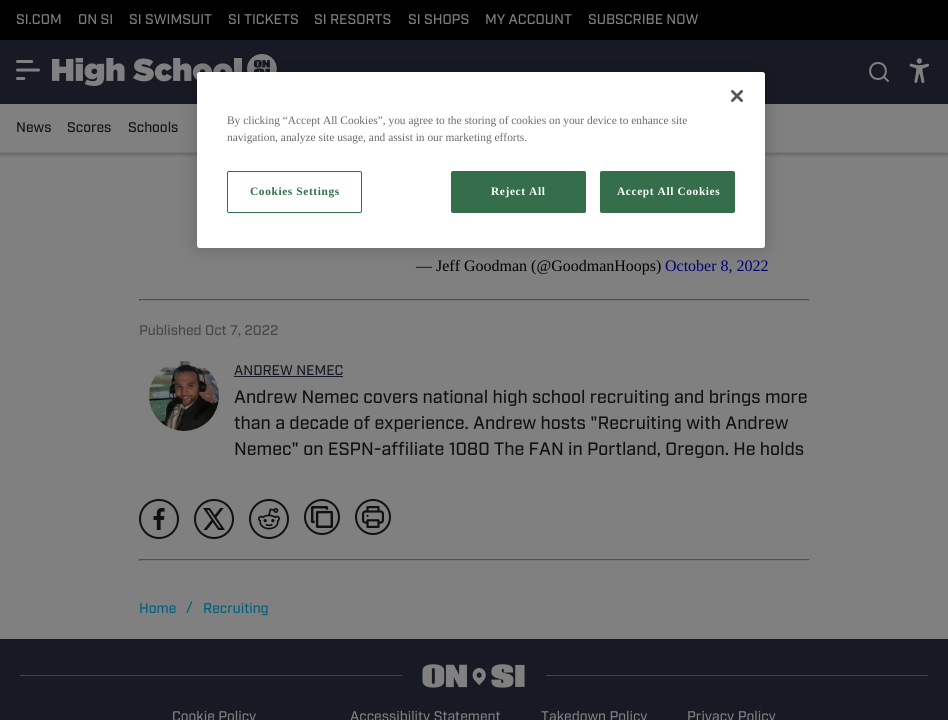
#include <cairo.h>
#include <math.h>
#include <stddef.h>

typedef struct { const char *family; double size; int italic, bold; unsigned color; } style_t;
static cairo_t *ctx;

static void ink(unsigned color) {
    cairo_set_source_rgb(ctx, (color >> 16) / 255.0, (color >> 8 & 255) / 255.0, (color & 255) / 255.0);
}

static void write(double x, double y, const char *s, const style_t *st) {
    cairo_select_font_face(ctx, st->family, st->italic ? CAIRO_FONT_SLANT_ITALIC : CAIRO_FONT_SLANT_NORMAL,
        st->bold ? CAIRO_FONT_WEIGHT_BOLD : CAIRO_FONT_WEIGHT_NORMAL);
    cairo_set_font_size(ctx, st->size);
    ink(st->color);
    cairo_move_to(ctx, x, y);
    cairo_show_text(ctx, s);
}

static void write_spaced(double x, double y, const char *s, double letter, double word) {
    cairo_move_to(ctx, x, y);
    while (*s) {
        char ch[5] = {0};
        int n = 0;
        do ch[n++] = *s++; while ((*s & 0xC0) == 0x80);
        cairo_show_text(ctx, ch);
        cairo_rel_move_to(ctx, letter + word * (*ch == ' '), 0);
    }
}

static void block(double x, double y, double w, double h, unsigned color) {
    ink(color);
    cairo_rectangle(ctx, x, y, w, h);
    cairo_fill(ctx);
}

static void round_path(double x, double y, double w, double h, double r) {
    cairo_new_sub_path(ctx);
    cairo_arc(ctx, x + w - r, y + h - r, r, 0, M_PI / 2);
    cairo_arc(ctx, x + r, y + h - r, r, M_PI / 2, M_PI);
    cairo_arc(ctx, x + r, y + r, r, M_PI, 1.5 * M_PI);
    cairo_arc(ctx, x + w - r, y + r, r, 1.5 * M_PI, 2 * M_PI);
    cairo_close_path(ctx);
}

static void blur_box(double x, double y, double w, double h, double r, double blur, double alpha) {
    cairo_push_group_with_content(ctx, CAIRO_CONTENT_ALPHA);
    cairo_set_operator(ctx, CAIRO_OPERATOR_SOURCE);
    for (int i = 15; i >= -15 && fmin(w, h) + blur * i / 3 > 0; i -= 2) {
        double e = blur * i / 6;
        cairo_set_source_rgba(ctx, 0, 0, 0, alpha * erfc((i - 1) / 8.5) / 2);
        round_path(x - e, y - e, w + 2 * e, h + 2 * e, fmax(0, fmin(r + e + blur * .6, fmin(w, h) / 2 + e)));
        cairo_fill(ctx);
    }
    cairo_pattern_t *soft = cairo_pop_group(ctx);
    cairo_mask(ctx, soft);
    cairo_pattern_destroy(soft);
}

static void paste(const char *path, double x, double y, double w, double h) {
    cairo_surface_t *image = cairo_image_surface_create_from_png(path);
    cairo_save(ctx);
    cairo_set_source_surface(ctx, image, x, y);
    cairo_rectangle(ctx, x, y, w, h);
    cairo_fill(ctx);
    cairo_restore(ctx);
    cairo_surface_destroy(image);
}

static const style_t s1 = {"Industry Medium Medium", 14, 0, 0, 0x808080};
static const style_t s2 = {"Industry Medium Medium", 14, 0, 0, 0x111111};
static const style_t s3 = {"Liberation Serif", 16, 0, 0, 0x000000};
static const style_t s4 = {"Liberation Serif", 16, 0, 0, 0x000077};
static const style_t s5 = {"Industry Medium Medium", 14, 0, 0, 0x464646};
static const style_t s6 = {"Industry Medium Medium", 14, 0, 0, 0x171924};
static const style_t s7 = {"Industry Medium Medium", 18, 0, 0, 0x111111};
static const style_t s8 = {"Industry Medium Medium", 14, 0, 0, 0x005e7a};
static const style_t s9 = {"Liberation Serif", 11.4, 0, 0, 0x696969};

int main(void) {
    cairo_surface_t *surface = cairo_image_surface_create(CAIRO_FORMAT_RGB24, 948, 720);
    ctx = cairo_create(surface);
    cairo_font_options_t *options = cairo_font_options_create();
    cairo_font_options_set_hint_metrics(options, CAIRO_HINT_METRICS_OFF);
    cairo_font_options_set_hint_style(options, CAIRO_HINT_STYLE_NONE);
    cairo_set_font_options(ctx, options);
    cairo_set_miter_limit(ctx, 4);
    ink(0x808080);
    cairo_paint(ctx);
    block(0, 0, 948, 40, 0x000000);
    write(16, 24, "SI.COM", &s1);
    write(78, 24, "ON SI", &s1);
    write(129, 24, "SI SWIMSUIT", &s1);
    write(228, 24, "SI TICKETS", &s1);
    write(314, 24, "SI RESORTS", &s1);
    write(408, 24, "SI SHOPS", &s1);
    write(485, 24, "MY ACCOUNT", &s1);
    write(588, 24, "SUBSCRIBE NOW", &s1);
    block(0, 40, 948, 64, 0x171924);
    paste("pic1.png", 16, 60, 24, 20);
    paste("pic2.png", 52, 54, 225, 32);
    cairo_new_path(ctx);
    cairo_move_to(ctx, 878, 79);
    cairo_curve_to(ctx, 888.5, 79, 888.5, 63, 878, 63);
    cairo_curve_to(ctx, 867.5, 63, 867.5, 79, 878, 79);
    cairo_close_path(ctx);
    cairo_move_to(ctx, 888, 81);
    cairo_line_to(ctx, 883.5, 76.5);
    ink(0x808080);
    cairo_set_line_cap(ctx, CAIRO_LINE_CAP_ROUND);
    cairo_set_line_join(ctx, CAIRO_LINE_JOIN_ROUND);
    cairo_stroke(ctx);
    paste("pic3.png", 909, 58, 21, 25);
    ink(0x000000);
    blur_box(0, 106, 948, 49, 0, 1.5, 0.2);
    block(0, 104, 948, 48, 0x808080);
    block(0, 152, 948, 1, 0x787878);
    write(16, 132, "News", &s2);
    write(67, 132, "Scores", &s2);
    write(128, 132, "Schools", &s2);
    write(416, 271, "— Jeff Goodman (@GoodmanHoops)", &s3);
    write(665, 271, "October 8, 2022", &s4);
    block(139, 299, 671, 1, 0x505050);
    block(809, 299, 1, 2, 0x777777);
    block(139, 300, 671, 1, 0x777777);
    block(139, 299, 1, 2, 0x505050);
    write(139, 335, "Published Oct 7, 2022", &s5);
    paste("pic4.png", 149, 361, 70, 70);
    write(234, 375, "ANDREW NEMEC", &s6);
    block(234, 376, 109, 1, 0x171924);
    write(234, 403, "Andrew Nemec covers national high school recruiting and brings more", &s7);
    write(234, 429, "than a decade of experience. Andrew hosts \"Recruiting with Andrew", &s7);
    write(234, 455, "Nemec\" on ESPN-affiliate 1080 The FAN in Portland, Oregon. He holds", &s7);
    cairo_new_path(ctx);
    cairo_arc(ctx, 159, 519, 19, 0, 2 * M_PI);
    cairo_set_line_cap(ctx, CAIRO_LINE_CAP_BUTT);
    cairo_set_line_join(ctx, CAIRO_LINE_JOIN_MITER);
    cairo_stroke(ctx);
    paste("pic5.png", 153, 508, 12, 22);
    cairo_arc(ctx, 214, 519, 19, 0, 2 * M_PI);
    cairo_stroke(ctx);
    paste("pic6.png", 203, 508, 22, 22);
    cairo_arc(ctx, 269, 519, 19, 0, 2 * M_PI);
    cairo_stroke(ctx);
    paste("pic7.png", 258, 508, 22, 22);
    cairo_arc(ctx, 322, 517, 17, 0, 2 * M_PI);
    cairo_stroke(ctx);
    paste("pic8.png", 311, 506, 22, 22);
    cairo_arc(ctx, 373, 517, 17, 0, 2 * M_PI);
    cairo_stroke(ctx);
    paste("pic9.png", 362, 506, 22, 22);
    block(139, 559, 671, 1, 0x505050);
    block(809, 559, 1, 2, 0x777777);
    block(139, 560, 671, 1, 0x777777);
    block(139, 559, 1, 2, 0x505050);
    write(139, 613, "Home", &s8);
    write(186, 612, "/", &s8);
    write(203, 613, "Recruiting", &s8);
    block(0, 639, 948, 81, 0x171924);
    block(20, 675, 382, 1, 0x005e7a);
    paste("pic10.png", 422, 664, 103, 24);
    block(546, 675, 382, 1, 0x005e7a);
    write(172, 721, "Cookie Policy", &s1);
    write(350, 721, "Accessibility Statement", &s1);
    write(541, 721, "Takedown Policy", &s1);
    write(687, 721, "Privacy Policy", &s1);
    ink(0x000000);
    blur_box(197, 72, 568, 176, 2.5, 9, 0.2);
    ink(0xffffff);
    round_path(197, 72, 568, 176, 2.5);
    cairo_fill(ctx);
    paste("pic11.png", 731, 90, 12, 12);
    write(227, 124, "By clicking “Accept All Cookies”, you agree to the storing of cookies on your device to enhance site", &s9);
    write(227, 141, "navigation, analyze site usage, and assist in our marketing efforts.", &s9);
    round_path(227.5, 171.5, 134, 41, 1.5);
    ink(0x346e4a);
    cairo_set_line_width(ctx, 1);
    cairo_stroke(ctx);
    cairo_select_font_face(ctx, "Liberation Serif", CAIRO_FONT_SLANT_NORMAL, CAIRO_FONT_WEIGHT_BOLD);
    write_spaced(250, 195, "Cookies Settings", 0.6, 0);
    round_path(451.5, 171.5, 134, 41, 1.5);
    cairo_fill_preserve(ctx);
    cairo_stroke(ctx);
    ink(0xffffff);
    write_spaced(491, 195, "Reject All", 0.6, 0);
    ink(0x346e4a);
    round_path(600.5, 171.5, 134, 41, 1.5);
    cairo_fill_preserve(ctx);
    cairo_stroke(ctx);
    ink(0xffffff);
    write_spaced(617, 195, "Accept All Cookies", 0.6, 0);
    cairo_surface_write_to_png(surface, "screenshot.png");
    cairo_font_options_destroy(options);
    cairo_destroy(ctx);
    cairo_surface_destroy(surface);
    return 0;
}
